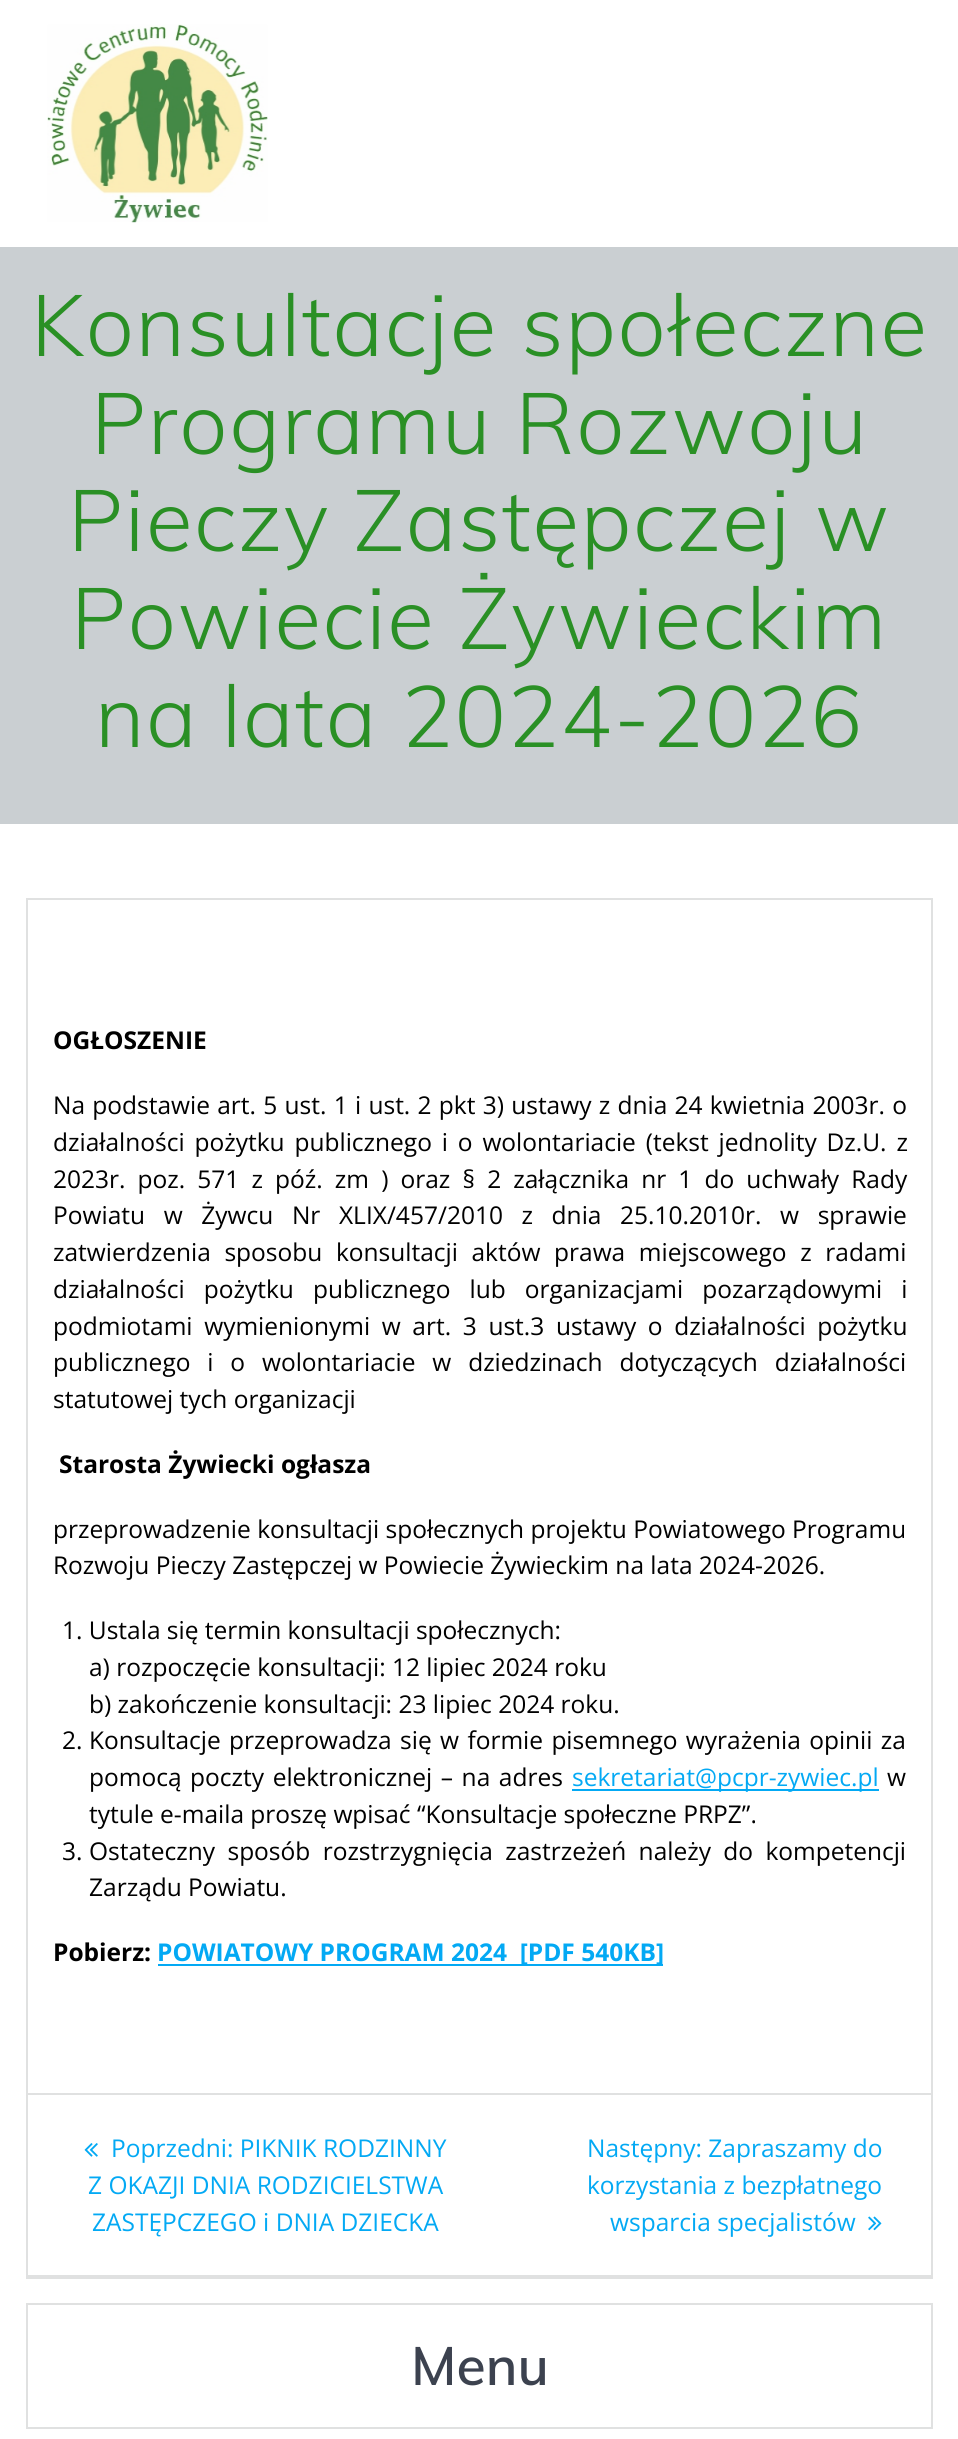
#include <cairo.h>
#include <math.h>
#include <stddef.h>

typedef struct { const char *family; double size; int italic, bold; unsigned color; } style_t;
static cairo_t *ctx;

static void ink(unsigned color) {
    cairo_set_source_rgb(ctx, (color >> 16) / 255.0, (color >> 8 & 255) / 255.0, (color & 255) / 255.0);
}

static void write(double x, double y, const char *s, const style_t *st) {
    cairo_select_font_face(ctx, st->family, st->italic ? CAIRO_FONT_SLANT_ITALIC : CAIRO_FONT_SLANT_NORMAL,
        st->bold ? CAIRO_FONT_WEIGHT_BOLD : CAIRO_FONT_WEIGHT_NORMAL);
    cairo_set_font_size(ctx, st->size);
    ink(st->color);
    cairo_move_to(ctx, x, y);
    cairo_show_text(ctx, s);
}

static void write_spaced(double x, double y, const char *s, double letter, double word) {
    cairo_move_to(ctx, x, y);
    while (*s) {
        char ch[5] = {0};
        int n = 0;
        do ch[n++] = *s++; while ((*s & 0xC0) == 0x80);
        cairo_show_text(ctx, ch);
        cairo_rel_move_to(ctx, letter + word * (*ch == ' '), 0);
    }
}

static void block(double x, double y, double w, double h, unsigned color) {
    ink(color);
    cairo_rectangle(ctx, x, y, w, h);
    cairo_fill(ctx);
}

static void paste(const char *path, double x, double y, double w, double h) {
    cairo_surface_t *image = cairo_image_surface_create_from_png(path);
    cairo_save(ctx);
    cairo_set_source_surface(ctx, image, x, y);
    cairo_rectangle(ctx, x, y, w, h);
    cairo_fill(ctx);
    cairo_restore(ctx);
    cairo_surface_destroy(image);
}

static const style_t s1 = {"Open Sans", 24.5, 0, 1, 0x000000};
static const style_t s2 = {"Open Sans", 24.5, 0, 0, 0x000000};
static const style_t s3 = {"Open Sans", 24.5, 0, 0, 0x03a9f4};
static const style_t s4 = {"Open Sans", 24.5, 0, 1, 0x03a9f4};
static const style_t s5 = {"Muli SemiBold", 53.5, 0, 0, 0x3c424f};

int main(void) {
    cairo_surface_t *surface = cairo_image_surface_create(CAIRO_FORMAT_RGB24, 958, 2439);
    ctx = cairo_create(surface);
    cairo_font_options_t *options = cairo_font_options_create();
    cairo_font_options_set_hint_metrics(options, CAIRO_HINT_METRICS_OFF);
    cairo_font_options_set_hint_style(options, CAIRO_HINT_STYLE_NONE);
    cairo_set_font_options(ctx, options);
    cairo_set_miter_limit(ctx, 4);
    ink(0xffffff);
    cairo_paint(ctx);
    paste("pic1.png", 47, 24, 221, 199);
    block(0, 247, 958, 577, 0xcacfd2);
    cairo_select_font_face(ctx, "Muli Light", CAIRO_FONT_SLANT_NORMAL, CAIRO_FONT_WEIGHT_NORMAL);
    cairo_set_font_size(ctx, 85.75);
    ink(0x2a9025);
    write_spaced(31, 356, "Konsultacje społeczne", 1.6, 0);
    write_spaced(91, 454, "Programu Rozwoju", 1.6, 0);
    write_spaced(68, 551, "Pieczy Zastępczej w", 1.6, 0);
    write_spaced(71, 649, "Powiecie Żywieckim", 1.6, 0);
    write_spaced(95, 747, "na lata 2024-2026", 1.6, 0);
    cairo_rectangle(ctx, 27, 899, 905, 1379);
    ink(0xe0e1e1);
    cairo_stroke(ctx);
    write(53, 1049, "OGŁOSZENIE", &s1);
    cairo_select_font_face(ctx, "Open Sans", CAIRO_FONT_SLANT_NORMAL, CAIRO_FONT_WEIGHT_NORMAL);
    write_spaced(53, 1114, "Na podstawie art. 5 ust. 1 i ust. 2 pkt 3) ustawy z dnia 24 kwietnia 2003r. o", 0, 0.9);
    write_spaced(53, 1151, "działalności pożytku publicznego i o wolontariacie (tekst jednolity Dz.U. z", 0, 3.5);
    write_spaced(53, 1188, "2023r. poz. 571 z póź. zm ) oraz § 2 załącznika nr 1 do uchwały Rady", 0, 5.75);
    write_spaced(53, 1224, "Powiatu w Żywcu Nr XLIX/457/2010 z dnia 25.10.2010r. w sprawie", 0, 12.25);
    write_spaced(53, 1261, "zatwierdzenia sposobu konsultacji aktów prawa miejscowego z radami", 0, 7.25);
    write_spaced(53, 1298, "działalności pożytku publicznego lub organizacjami pozarządowymi i", 0, 12.75);
    write_spaced(53, 1335, "podmiotami wymienionymi w art. 3 ust.3 ustawy o działalności pożytku", 0, 5.25);
    write_spaced(53, 1371, "publicznego i o wolontariacie w dziedzinach dotyczących działalności", 0, 10.5);
    write(53, 1408, "statutowej tych organizacji", &s2);
    write(59, 1473, "Starosta Żywiecki ogłasza", &s1);
    write(53, 1538, "przeprowadzenie konsultacji społecznych projektu Powiatowego Programu", &s2);
    write(53, 1574, "Rozwoju Pieczy Zastępczej w Powiecie Żywieckim na lata 2024-2026.", &s2);
    write(62, 1639, "1. Ustala się termin konsultacji społecznych:", &s2);
    write(89, 1676, "a) rozpoczęcie konsultacji: 12 lipiec 2024 roku", &s2);
    write(89, 1713, "b) zakończenie konsultacji: 23 lipiec 2024 roku.", &s2);
    write(62, 1749, "2.", &s2);
    write_spaced(89, 1749, "Konsultacje przeprowadza się w formie pisemnego wyrażenia opinii za", 0, 2);
    write_spaced(89, 1786, "pomocą poczty elektronicznej – na adres", 0, 2.25);
    block(572, 1789, 307, 2, 0x03a9f4);
    write(572, 1786, "sekretariat@pcpr-zywiec.pl", &s3);
    write(887, 1786, "w", &s2);
    write(89, 1823, "tytule e-maila proszę wpisać “Konsultacje społeczne PRPZ”.", &s2);
    write(62, 1860, "3.", &s2);
    write_spaced(89, 1860, "Ostateczny sposób rozstrzygnięcia zastrzeżeń należy do kompetencji", 0, 6);
    write(89, 1896, "Zarządu Powiatu.", &s2);
    write(53, 1961, "Pobierz:", &s1);
    block(158, 1964, 505, 2, 0x03a9f4);
    write(157, 1961, "POWIATOWY PROGRAM 2024  [PDF 540KB]", &s4);
    block(28, 2093, 903, 2, 0xe0e1e1);
    block(28, 2275, 903, 2, 0xe0e1e1);
    paste("pic2.png", 84, 2143, 14, 14);
    write(111, 2157, "Poprzedni: PIKNIK RODZINNY", &s3);
    write(88, 2194, "Z OKAZJI DNIA RODZICIELSTWA", &s3);
    write(92, 2231, "ZASTĘPCZEGO i DNIA DZIECKA", &s3);
    write(587, 2157, "Następny: Zapraszamy do", &s3);
    write(587, 2194, "korzystania z bezpłatnego", &s3);
    write(610, 2231, "wsparcia specjalistów", &s3);
    paste("pic3.png", 868, 2216, 14, 15);
    cairo_rectangle(ctx, 27, 2304, 905, 124);
    ink(0xe0e1e1);
    cairo_stroke(ctx);
    write(411, 2385, "Menu", &s5);
    cairo_surface_write_to_png(surface, "screenshot.png");
    cairo_font_options_destroy(options);
    cairo_destroy(ctx);
    cairo_surface_destroy(surface);
    return 0;
}
